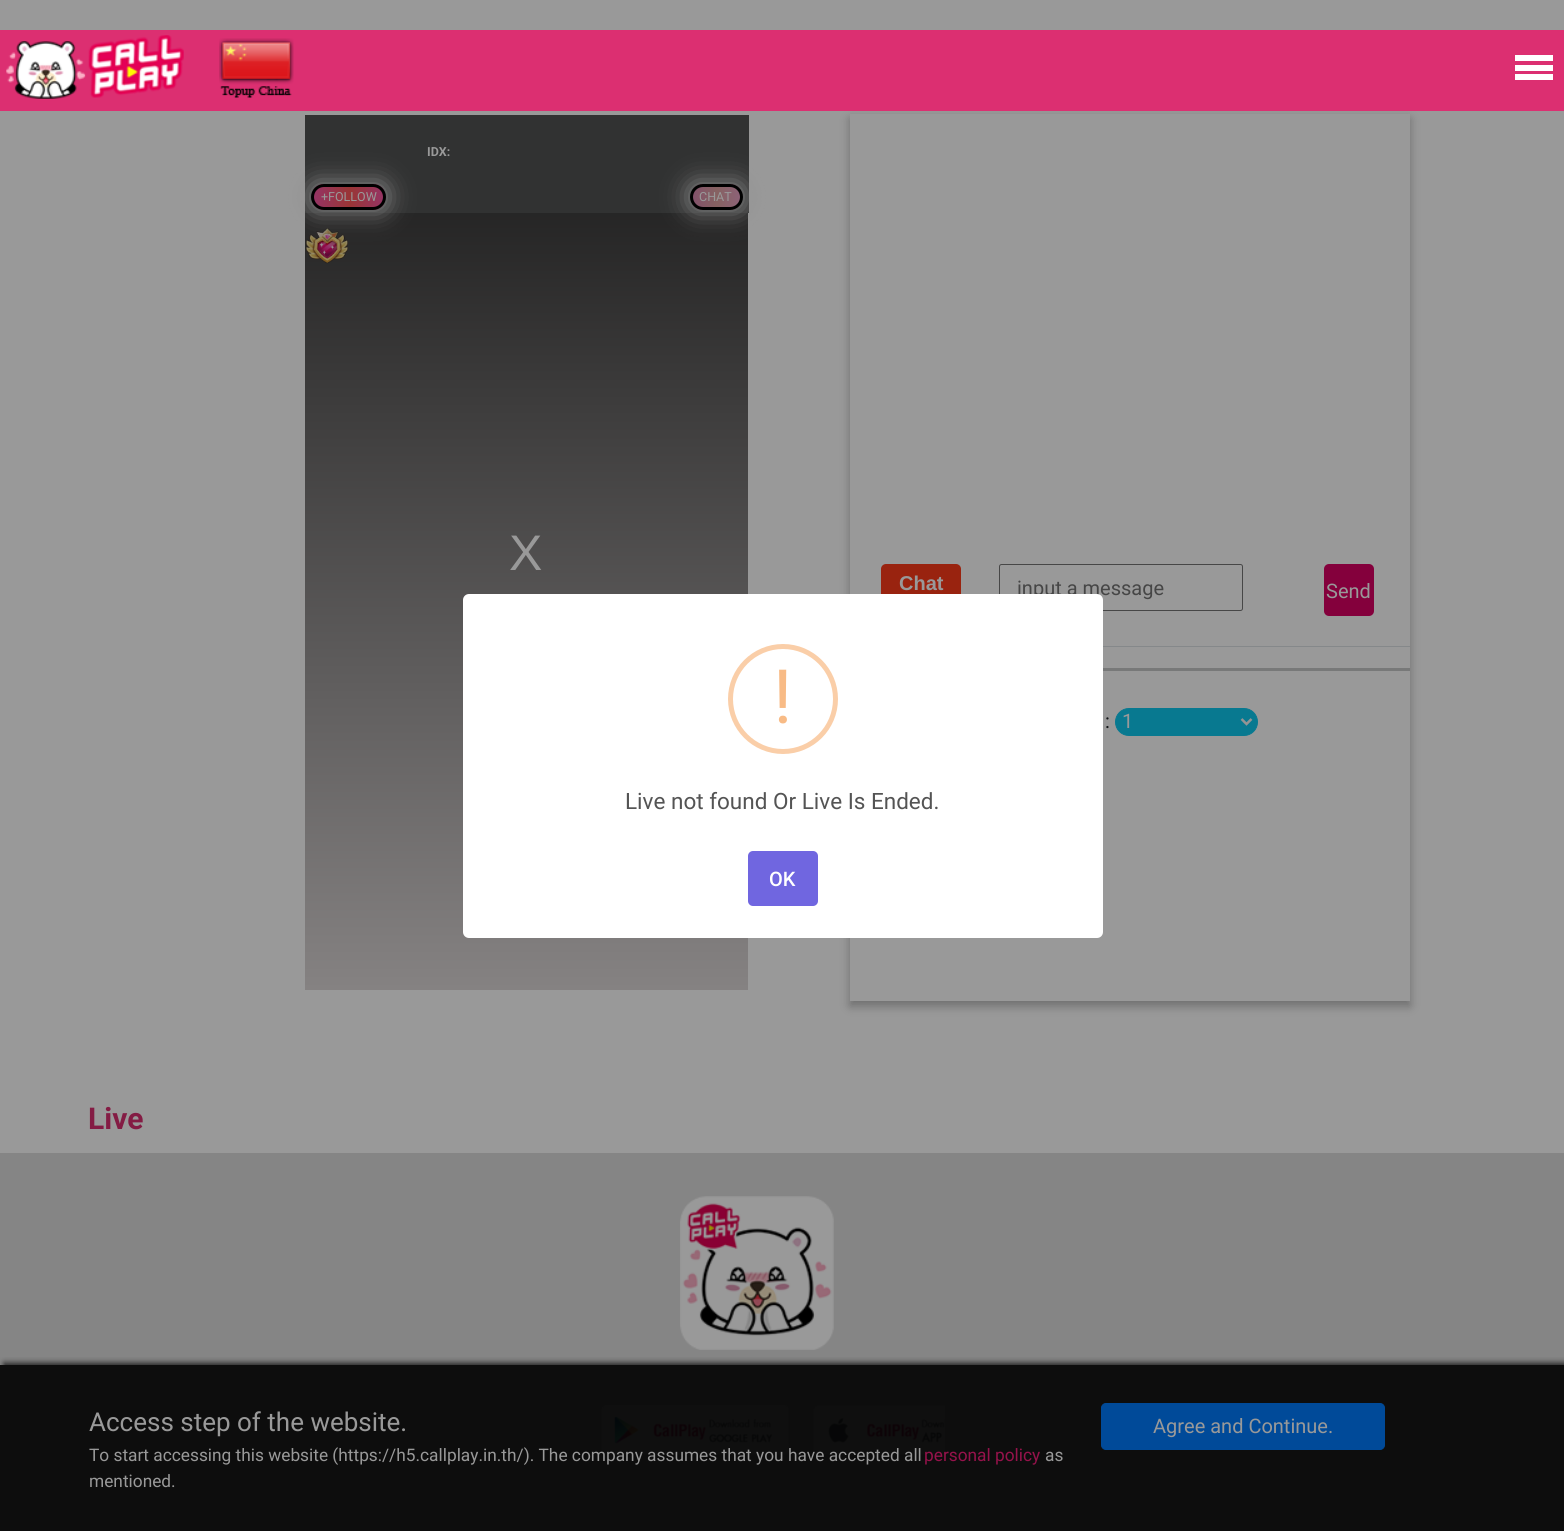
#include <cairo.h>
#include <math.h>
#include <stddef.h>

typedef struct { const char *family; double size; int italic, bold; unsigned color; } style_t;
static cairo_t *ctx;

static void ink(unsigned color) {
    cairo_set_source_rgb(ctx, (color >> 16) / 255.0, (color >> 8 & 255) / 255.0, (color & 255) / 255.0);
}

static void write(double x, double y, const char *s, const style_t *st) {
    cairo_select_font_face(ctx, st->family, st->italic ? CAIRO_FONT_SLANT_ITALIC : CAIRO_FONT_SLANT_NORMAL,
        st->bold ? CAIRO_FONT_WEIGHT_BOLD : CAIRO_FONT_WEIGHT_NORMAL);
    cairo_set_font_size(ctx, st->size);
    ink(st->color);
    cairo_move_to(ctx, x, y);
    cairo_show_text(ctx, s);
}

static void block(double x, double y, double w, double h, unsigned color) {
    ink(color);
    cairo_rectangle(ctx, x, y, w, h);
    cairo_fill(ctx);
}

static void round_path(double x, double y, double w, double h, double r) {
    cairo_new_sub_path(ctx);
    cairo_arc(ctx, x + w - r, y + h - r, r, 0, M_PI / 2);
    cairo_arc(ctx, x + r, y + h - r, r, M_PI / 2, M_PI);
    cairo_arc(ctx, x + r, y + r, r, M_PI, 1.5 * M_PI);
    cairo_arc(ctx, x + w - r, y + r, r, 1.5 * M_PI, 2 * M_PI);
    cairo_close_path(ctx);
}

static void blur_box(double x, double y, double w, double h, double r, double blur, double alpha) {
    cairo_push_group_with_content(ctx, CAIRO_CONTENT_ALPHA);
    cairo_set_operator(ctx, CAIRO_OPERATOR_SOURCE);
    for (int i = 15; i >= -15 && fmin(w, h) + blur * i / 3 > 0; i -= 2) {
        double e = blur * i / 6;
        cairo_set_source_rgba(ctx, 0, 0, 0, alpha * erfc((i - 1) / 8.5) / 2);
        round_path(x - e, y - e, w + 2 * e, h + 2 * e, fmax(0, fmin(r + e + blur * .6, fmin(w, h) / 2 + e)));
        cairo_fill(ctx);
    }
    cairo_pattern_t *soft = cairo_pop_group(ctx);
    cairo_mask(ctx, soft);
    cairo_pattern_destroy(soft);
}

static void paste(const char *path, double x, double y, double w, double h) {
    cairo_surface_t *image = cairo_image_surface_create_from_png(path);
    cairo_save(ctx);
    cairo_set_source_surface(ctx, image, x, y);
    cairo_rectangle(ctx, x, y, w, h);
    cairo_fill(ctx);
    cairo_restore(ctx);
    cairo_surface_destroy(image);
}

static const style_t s1 = {"Roboto", 12.5, 0, 1, 0x999999};
static const style_t s2 = {"Roboto", 12.5, 0, 0, 0x999999};
static const style_t s3 = {"Liberation Sans", 50, 0, 0, 0x999999};
static const style_t s4 = {"Liberation Sans", 20, 0, 1, 0x999999};
static const style_t s5 = {"Roboto", 20, 0, 0, 0x464646};
static const style_t s6 = {"Roboto", 20, 0, 0, 0x999999};
static const style_t s7 = {"Roboto", 20, 0, 0, 0x141619};
static const style_t s8 = {"Roboto", 30, 0, 1, 0x841c44};
static const style_t s9 = {"Roboto", 75, 0, 0, 0xf8bb86};
static const style_t s10 = {"Roboto", 22.5, 0, 0, 0x545454};
static const style_t s11 = {"Roboto Medium", 20, 0, 0, 0xffffff};
static const style_t s12 = {"Roboto", 26, 0, 0, 0x999999};
static const style_t s13 = {"Roboto", 17.3, 0, 0, 0x999999};
static const style_t s14 = {"Roboto", 17.3, 0, 0, 0x96124b};

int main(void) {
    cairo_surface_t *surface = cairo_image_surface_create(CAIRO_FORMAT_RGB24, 1564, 1531);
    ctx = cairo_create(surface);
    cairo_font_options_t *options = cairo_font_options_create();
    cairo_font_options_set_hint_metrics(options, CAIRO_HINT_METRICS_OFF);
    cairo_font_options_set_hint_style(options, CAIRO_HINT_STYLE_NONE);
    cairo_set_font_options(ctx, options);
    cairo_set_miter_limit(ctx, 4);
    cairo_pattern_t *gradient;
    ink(0x999999);
    cairo_paint(ctx);
    cairo_save(ctx);
    cairo_set_fill_rule(ctx, CAIRO_FILL_RULE_EVEN_ODD);
    cairo_new_path(ctx);
    cairo_move_to(ctx, 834, 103);
    cairo_line_to(ctx, 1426, 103);
    cairo_line_to(ctx, 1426, 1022);
    cairo_line_to(ctx, 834, 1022);
    cairo_close_path(ctx);
    cairo_move_to(ctx, 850, 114);
    cairo_line_to(ctx, 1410, 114);
    cairo_line_to(ctx, 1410, 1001);
    cairo_line_to(ctx, 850, 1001);
    cairo_close_path(ctx);
    cairo_clip(ctx);
    ink(0x000000);
    blur_box(850, 119, 560, 887, 0, 5, 0.28);
    cairo_restore(ctx);
    block(0, 30, 1564, 81, 0xdc2f71);
    block(1515, 74, 38, 6, 0xffffff);
    block(1515, 65, 38, 6, 0xffffff);
    block(1515, 55, 38, 6, 0xffffff);
    paste("pic1.png", 6, 35, 178, 64);
    paste("pic2.png", 219, 38, 75, 60);
    block(305, 115, 444, 98, 0x313232);
    write(427, 156, "IDX:", &s1);
    gradient = cairo_pattern_create_linear(526, 115, 526, 990);
    cairo_pattern_add_color_stop_rgba(gradient, 0, 0.102, 0.102, 0.102, 1);
    cairo_pattern_add_color_stop_rgba(gradient, 1, 0.522, 0.51, 0.51, 1);
    cairo_set_source(ctx, gradient);
    cairo_pattern_destroy(gradient);
    cairo_rectangle(ctx, 305, 213, 443, 777);
    cairo_fill(ctx);
    ink(0x8f8f8f);
    blur_box(311, 184, 75, 26, 13, 12.5, 1);
    cairo_save(ctx);
    round_path(311, 184, 75, 26, 13);
    cairo_clip(ctx);
    gradient = cairo_pattern_create_linear(314, 197, 384, 197);
    cairo_pattern_add_color_stop_rgba(gradient, 0, 0.584, 0.204, 0.392, 1);
    cairo_pattern_add_color_stop_rgba(gradient, 0.51, 0.6, 0.208, 0.208, 1);
    cairo_pattern_add_color_stop_rgba(gradient, 1, 0.584, 0.204, 0.392, 1);
    cairo_set_source(ctx, gradient);
    cairo_pattern_destroy(gradient);
    cairo_rectangle(ctx, 314, 184, 70, 26);
    cairo_fill(ctx);
    cairo_restore(ctx);
    round_path(312.5, 185.5, 72, 23, 11.5);
    ink(0x000000);
    cairo_set_line_width(ctx, 3);
    cairo_stroke(ctx);
    write(321, 201, "+FOLLOW", &s2);
    ink(0x8f8f8f);
    blur_box(690, 184, 53, 26, 13, 12.5, 1);
    cairo_save(ctx);
    round_path(690, 184, 53, 26, 13);
    cairo_clip(ctx);
    gradient = cairo_pattern_create_linear(693, 197, 740, 197);
    cairo_pattern_add_color_stop_rgba(gradient, 0, 0.514, 0.322, 0.416, 1);
    cairo_pattern_add_color_stop_rgba(gradient, 0.51, 0.525, 0.384, 0.384, 1);
    cairo_pattern_add_color_stop_rgba(gradient, 1, 0.553, 0.384, 0.467, 1);
    cairo_set_source(ctx, gradient);
    cairo_pattern_destroy(gradient);
    cairo_rectangle(ctx, 693, 184, 47, 26);
    cairo_fill(ctx);
    cairo_restore(ctx);
    round_path(691.5, 185.5, 50, 23, 11.5);
    ink(0x000000);
    cairo_stroke(ctx);
    write(699, 201, "CHAT", &s2);
    paste("pic3.png", 305, 228, 43, 36);
    write(509, 570, "X", &s3);
    ink(0x99230f);
    round_path(881, 564, 80, 40, 5);
    cairo_fill(ctx);
    write(899, 590, "Chat", &s4);
    round_path(999.5, 564.5, 243, 46, 2);
    ink(0x474747);
    cairo_set_line_width(ctx, 1);
    cairo_stroke(ctx);
    write(1017, 595, "input a message", &s5);
    ink(0x84003c);
    round_path(1324, 564, 50, 52, 5);
    cairo_fill(ctx);
    write(1326, 598, "Send", &s6);
    block(1103, 646, 307, 1, 0x85888a);
    block(1103, 668, 307, 3, 0x787979);
    write(1105, 728, ":", &s7);
    ink(0x087990);
    round_path(1115.5, 708.5, 142, 27, 13.5);
    cairo_fill_preserve(ctx);
    cairo_stroke(ctx);
    cairo_new_path(ctx);
    cairo_move_to(ctx, 1241.5, 719);
    cairo_line_to(ctx, 1246.5, 724);
    cairo_line_to(ctx, 1251.5, 719);
    ink(0x949494);
    cairo_set_line_width(ctx, 2.5);
    cairo_stroke(ctx);
    write(1122, 728, "1", &s6);
    write(88, 1129, "Live", &s8);
    block(0, 1153, 1564, 212, 0x858585);
    block(0, 1365, 1564, 166, 0x0d0d0d);
    paste("pic4.png", 680, 1196, 154, 154);
    paste("pic5.png", 601, 1405, 188, 50);
    paste("pic6.png", 813, 1405, 132, 50);
    ink(0xffffff);
    round_path(463, 594, 640, 344, 6);
    cairo_fill(ctx);
    cairo_arc(ctx, 783, 699, 52.5, 0, 2 * M_PI);
    ink(0xfacea8);
    cairo_set_line_width(ctx, 5);
    cairo_stroke(ctx);
    write(773, 723, "!", &s9);
    write(625, 809, "Live not found Or Live Is Ended.", &s10);
    ink(0x7066e0);
    round_path(748, 851, 70, 55, 5);
    cairo_fill(ctx);
    write(769, 886, "OK", &s11);
    cairo_save(ctx);
    cairo_rectangle(ctx, 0, 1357, 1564, 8);
    cairo_clip(ctx);
    ink(0x1f1f1f);
    blur_box(4, 1363, 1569, 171, 0, 3, 1);
    cairo_restore(ctx);
    write(89, 1431, "Access step of the website.", &s12);
    write(89, 1461, "To start accessing this website (https://h5.callplay.in.th/). The company assumes that you have accepted all", &s13);
    write(924, 1461, "personal policy", &s14);
    write(1045, 1461, "as", &s13);
    write(89, 1487, "mentioned.", &s13);
    ink(0x004a99);
    round_path(1101.5, 1403.5, 283, 46, 4.5);
    cairo_fill_preserve(ctx);
    cairo_set_line_width(ctx, 1);
    cairo_stroke(ctx);
    write(1153, 1433, "Agree and Continue.", &s6);
    cairo_surface_write_to_png(surface, "screenshot.png");
    cairo_font_options_destroy(options);
    cairo_destroy(ctx);
    cairo_surface_destroy(surface);
    return 0;
}
